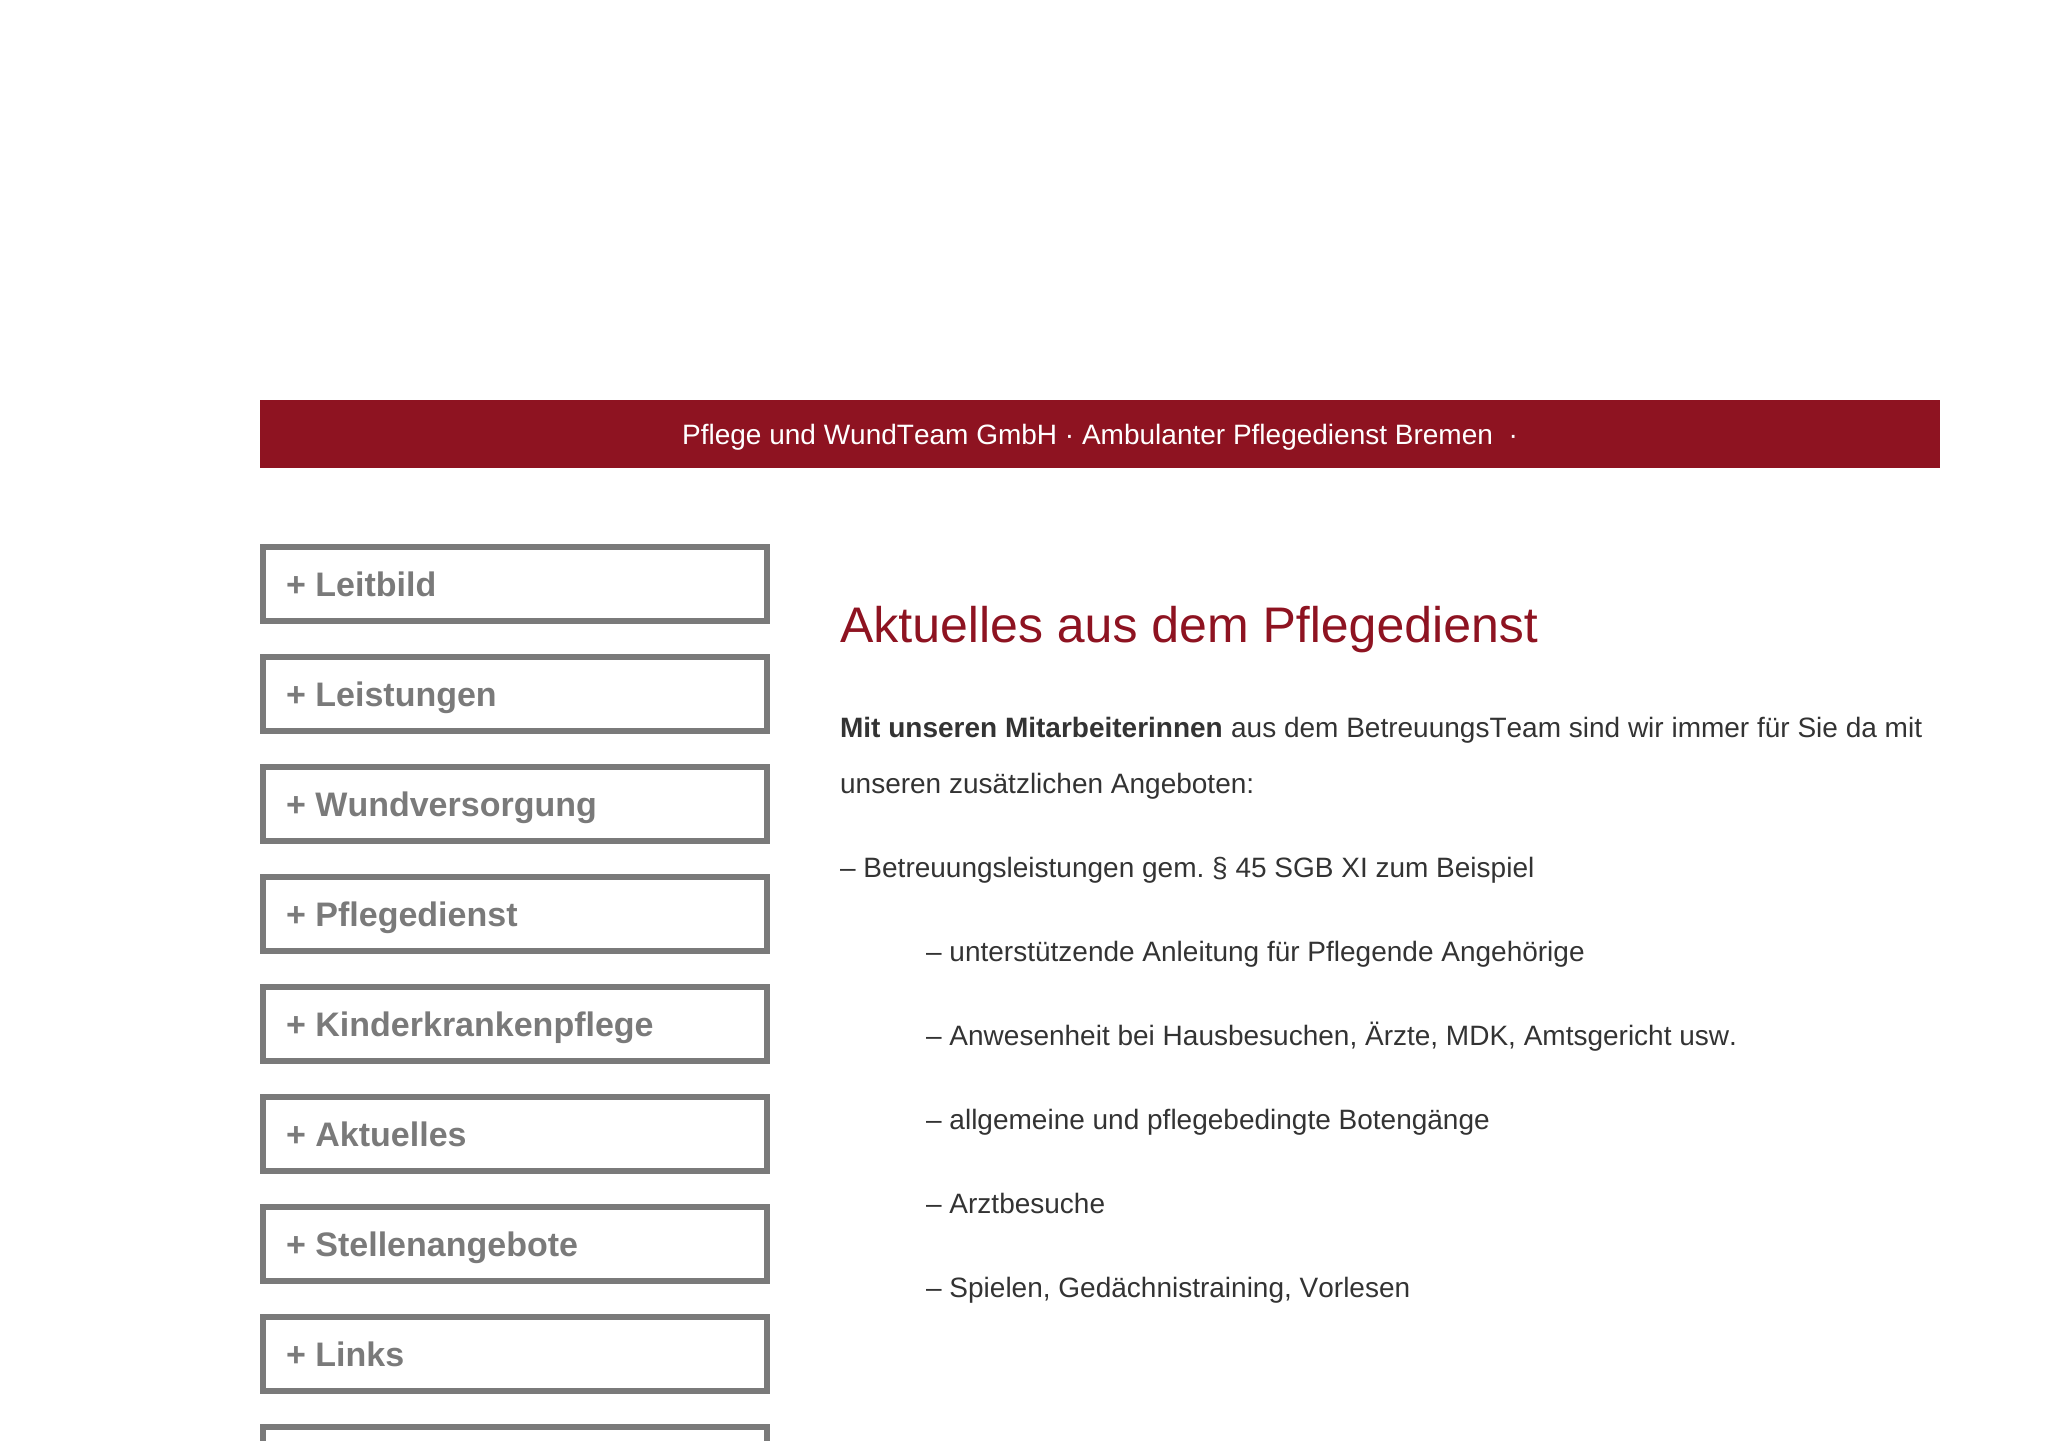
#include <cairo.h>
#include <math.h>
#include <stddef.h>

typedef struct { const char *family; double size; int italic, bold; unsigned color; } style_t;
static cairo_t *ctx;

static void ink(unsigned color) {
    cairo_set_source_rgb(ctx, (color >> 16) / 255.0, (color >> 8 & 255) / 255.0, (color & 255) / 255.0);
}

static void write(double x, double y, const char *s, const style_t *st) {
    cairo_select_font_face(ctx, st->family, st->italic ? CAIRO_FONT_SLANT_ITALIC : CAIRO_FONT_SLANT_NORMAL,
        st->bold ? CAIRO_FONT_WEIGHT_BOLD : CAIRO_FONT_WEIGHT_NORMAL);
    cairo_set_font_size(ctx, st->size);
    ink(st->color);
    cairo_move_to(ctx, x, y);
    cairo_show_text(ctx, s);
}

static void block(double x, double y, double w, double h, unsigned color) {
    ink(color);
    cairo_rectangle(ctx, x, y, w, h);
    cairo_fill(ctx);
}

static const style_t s1 = {"Liberation Sans", 28, 0, 0, 0xffffff};
static const style_t s2 = {"Liberation Sans", 34, 0, 1, 0x7a7a7a};
static const style_t s3 = {"Liberation Sans", 50, 0, 0, 0x8e1321};
static const style_t s4 = {"Liberation Sans", 28, 0, 1, 0x333333};
static const style_t s5 = {"Liberation Sans", 28, 0, 0, 0x333333};

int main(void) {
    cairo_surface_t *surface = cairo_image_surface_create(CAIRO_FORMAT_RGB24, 2065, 1441);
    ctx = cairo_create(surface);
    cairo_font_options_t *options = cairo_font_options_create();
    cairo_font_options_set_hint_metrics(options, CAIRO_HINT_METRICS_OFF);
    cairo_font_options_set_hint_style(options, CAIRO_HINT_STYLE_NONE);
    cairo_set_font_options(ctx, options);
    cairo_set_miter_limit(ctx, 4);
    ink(0xffffff);
    cairo_paint(ctx);
    block(260, 400, 1680, 68, 0x8e1321);
    write(682, 444, "Pflege und WundTeam GmbH · Ambulanter Pflegedienst Bremen  ·", &s1);
    cairo_rectangle(ctx, 263, 547, 504, 74);
    ink(0x7a7a7a);
    cairo_set_line_width(ctx, 6);
    cairo_stroke(ctx);
    write(286, 596, "+ Leitbild", &s2);
    cairo_rectangle(ctx, 263, 657, 504, 74);
    cairo_stroke(ctx);
    write(286, 706, "+ Leistungen", &s2);
    cairo_rectangle(ctx, 263, 767, 504, 74);
    cairo_stroke(ctx);
    write(286, 816, "+ Wundversorgung", &s2);
    cairo_rectangle(ctx, 263, 877, 504, 74);
    cairo_stroke(ctx);
    write(286, 926, "+ Pflegedienst", &s2);
    cairo_rectangle(ctx, 263, 987, 504, 74);
    cairo_stroke(ctx);
    write(286, 1036, "+ Kinderkrankenpflege", &s2);
    cairo_rectangle(ctx, 263, 1097, 504, 74);
    cairo_stroke(ctx);
    write(286, 1146, "+ Aktuelles", &s2);
    cairo_rectangle(ctx, 263, 1207, 504, 74);
    cairo_stroke(ctx);
    write(286, 1256, "+ Stellenangebote", &s2);
    cairo_rectangle(ctx, 263, 1317, 504, 74);
    cairo_stroke(ctx);
    write(286, 1366, "+ Links", &s2);
    cairo_rectangle(ctx, 263, 1427, 504, 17);
    cairo_stroke(ctx);
    write(840, 642, "Aktuelles aus dem Pflegedienst", &s3);
    write(840, 737, "Mit unseren Mitarbeiterinnen", &s4);
    write(1231, 737, "aus dem BetreuungsTeam sind wir immer für Sie da mit", &s5);
    write(840, 793, "unseren zusätzlichen Angeboten:", &s5);
    write(840, 877, "– Betreuungsleistungen gem. § 45 SGB XI zum Beispiel", &s5);
    write(926, 961, "– unterstützende Anleitung für Pflegende Angehörige", &s5);
    write(926, 1045, "– Anwesenheit bei Hausbesuchen, Ärzte, MDK, Amtsgericht usw.", &s5);
    write(926, 1129, "– allgemeine und pflegebedingte Botengänge", &s5);
    write(926, 1213, "– Arztbesuche", &s5);
    write(926, 1297, "– Spielen, Gedächnistraining, Vorlesen", &s5);
    cairo_surface_write_to_png(surface, "screenshot.png");
    cairo_font_options_destroy(options);
    cairo_destroy(ctx);
    cairo_surface_destroy(surface);
    return 0;
}
